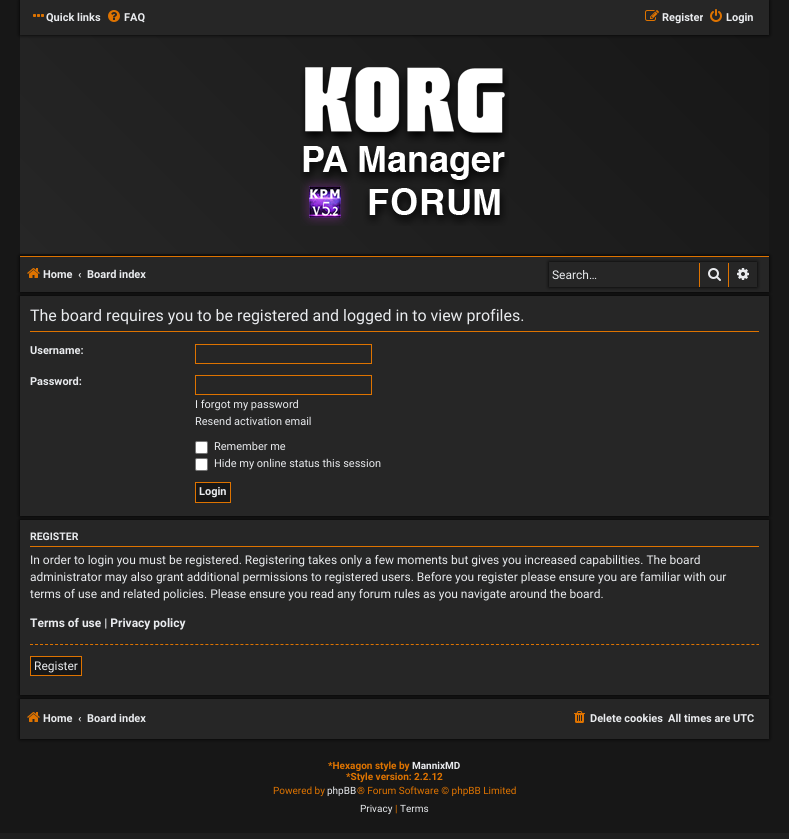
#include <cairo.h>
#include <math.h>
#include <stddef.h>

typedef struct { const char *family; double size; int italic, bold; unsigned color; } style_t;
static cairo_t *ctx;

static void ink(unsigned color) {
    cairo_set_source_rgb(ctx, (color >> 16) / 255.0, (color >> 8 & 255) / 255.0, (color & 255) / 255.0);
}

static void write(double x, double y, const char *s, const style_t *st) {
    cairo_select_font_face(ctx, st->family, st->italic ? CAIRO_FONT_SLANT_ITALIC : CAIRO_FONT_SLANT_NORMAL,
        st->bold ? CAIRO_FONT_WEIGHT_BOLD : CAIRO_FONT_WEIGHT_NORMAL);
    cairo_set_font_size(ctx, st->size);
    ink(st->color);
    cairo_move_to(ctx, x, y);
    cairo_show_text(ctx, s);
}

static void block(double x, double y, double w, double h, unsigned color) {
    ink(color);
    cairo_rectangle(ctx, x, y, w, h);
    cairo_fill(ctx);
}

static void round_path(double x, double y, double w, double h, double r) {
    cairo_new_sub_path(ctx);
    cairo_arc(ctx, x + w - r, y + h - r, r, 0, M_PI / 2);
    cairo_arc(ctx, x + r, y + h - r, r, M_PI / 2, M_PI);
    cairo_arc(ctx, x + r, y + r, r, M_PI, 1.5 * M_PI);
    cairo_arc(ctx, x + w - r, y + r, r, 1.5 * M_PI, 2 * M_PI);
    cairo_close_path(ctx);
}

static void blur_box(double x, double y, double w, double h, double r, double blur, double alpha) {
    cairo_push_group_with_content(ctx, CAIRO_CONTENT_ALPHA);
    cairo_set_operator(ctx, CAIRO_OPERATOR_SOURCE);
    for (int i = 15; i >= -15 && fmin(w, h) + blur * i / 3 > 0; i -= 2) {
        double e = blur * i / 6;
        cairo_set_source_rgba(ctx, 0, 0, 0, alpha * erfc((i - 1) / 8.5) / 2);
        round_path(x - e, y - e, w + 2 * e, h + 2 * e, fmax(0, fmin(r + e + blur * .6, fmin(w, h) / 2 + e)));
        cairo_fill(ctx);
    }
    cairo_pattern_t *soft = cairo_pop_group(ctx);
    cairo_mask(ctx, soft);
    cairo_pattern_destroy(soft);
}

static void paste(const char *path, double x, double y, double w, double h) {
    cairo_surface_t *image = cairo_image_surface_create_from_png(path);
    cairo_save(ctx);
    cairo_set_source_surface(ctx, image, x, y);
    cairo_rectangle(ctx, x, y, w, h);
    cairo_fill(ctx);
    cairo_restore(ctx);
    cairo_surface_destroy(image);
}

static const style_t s1 = {"Roboto", 11, 0, 1, 0xe9ebee};
static const style_t s2 = {"Roboto", 12, 0, 0, 0xe9ebee};
static const style_t s3 = {"Roboto", 16, 0, 0, 0xe9ebee};
static const style_t s4 = {"Roboto", 11, 0, 0, 0xe9ebee};
static const style_t s5 = {"Roboto", 10.5, 0, 1, 0xe9ebee};
static const style_t s6 = {"Roboto", 12, 0, 1, 0xe9ebee};
static const style_t s7 = {"Roboto", 10, 0, 1, 0xde7300};
static const style_t s8 = {"Roboto", 10, 0, 1, 0xe9ebee};
static const style_t s9 = {"Roboto", 10, 0, 0, 0xde7300};
static const style_t s10 = {"Roboto", 10, 0, 0, 0xe9ebee};

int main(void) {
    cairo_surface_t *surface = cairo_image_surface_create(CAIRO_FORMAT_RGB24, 789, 839);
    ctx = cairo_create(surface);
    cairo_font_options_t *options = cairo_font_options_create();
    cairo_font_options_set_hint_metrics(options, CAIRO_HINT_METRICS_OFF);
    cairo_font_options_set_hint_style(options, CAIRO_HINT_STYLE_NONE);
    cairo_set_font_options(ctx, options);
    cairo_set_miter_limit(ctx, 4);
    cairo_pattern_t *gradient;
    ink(0x1e1e1e);
    cairo_paint(ctx);
    block(0, 0, 789, 833, 0x171717);
    gradient = cairo_pattern_create_linear(153, 387, 637, -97);
    cairo_pattern_add_color_stop_rgba(gradient, 0, 0.149, 0.149, 0.149, 1);
    cairo_pattern_add_color_stop_rgba(gradient, 1, 0.09, 0.09, 0.09, 1);
    cairo_set_source(ctx, gradient);
    cairo_pattern_destroy(gradient);
    cairo_rectangle(ctx, 20, 35, 749, 219);
    cairo_fill(ctx);
    ink(0x000000);
    blur_box(20, 0, 749, 35, 0, 2, 1);
    block(20, 0, 749, 35, 0x262626);
    paste("pic1.png", 33, 14, 11, 3);
    write(46, 21, "Quick links", &s1);
    paste("pic2.png", 108, 10, 12, 12);
    write(124, 21, "FAQ", &s1);
    paste("pic3.png", 645, 10, 14, 11);
    write(662, 21, "Register", &s1);
    paste("pic4.png", 710, 9, 12, 13);
    write(726, 21, "Login", &s1);
    paste("pic5.png", 300, 67, 209, 159);
    ink(0x000000);
    blur_box(20, 256, 749, 36, 0, 2, 1);
    block(20, 257, 749, 35, 0x262626);
    block(20, 256, 749, 1, 0xde7300);
    paste("pic6.png", 27, 268, 13, 10);
    write(43, 278, "Home", &s1);
    write(78, 278, "‹", &s1);
    write(87, 278, "Board index", &s1);
    cairo_save(ctx);
    cairo_set_fill_rule(ctx, CAIRO_FILL_RULE_EVEN_ODD);
    cairo_new_path(ctx);
    cairo_move_to(ctx, 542, 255);
    cairo_line_to(ctx, 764, 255);
    cairo_line_to(ctx, 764, 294);
    cairo_line_to(ctx, 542, 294);
    cairo_close_path(ctx);
    cairo_move_to(ctx, 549, 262);
    cairo_line_to(ctx, 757, 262);
    cairo_line_to(ctx, 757, 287);
    cairo_line_to(ctx, 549, 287);
    cairo_close_path(ctx);
    cairo_clip(ctx);
    ink(0x000000);
    blur_box(549, 262, 208, 25, 0, 2, 1);
    cairo_restore(ctx);
    write(552, 279, "Search…", &s2);
    block(728, 263, 1, 24, 0xde7300);
    block(699, 263, 1, 24, 0xde7300);
    paste("pic7.png", 708, 268, 13, 13);
    paste("pic8.png", 737, 268, 12, 12);
    ink(0x000000);
    blur_box(20, 296, 749, 220, 0, 2, 1);
    block(20, 296, 749, 220, 0x262626);
    block(30, 331, 729, 1, 0xde7300);
    write(30, 321, "The board requires you to be registered and logged in to view profiles.", &s3);
    write(30, 354, "Username:", &s1);
    cairo_rectangle(ctx, 195.5, 344.5, 176, 19);
    ink(0xde7300);
    cairo_set_line_width(ctx, 1);
    cairo_stroke(ctx);
    write(30, 385, "Password:", &s1);
    cairo_rectangle(ctx, 195.5, 375.5, 176, 19);
    ink(0xde7300);
    cairo_stroke(ctx);
    write(195, 408, "I forgot my password", &s4);
    write(195, 425, "Resend activation email", &s4);
    ink(0xffffff);
    round_path(195.5, 441.5, 12, 12, 1.5);
    cairo_fill_preserve(ctx);
    ink(0x767676);
    cairo_stroke(ctx);
    write(214, 450, "Remember me", &s4);
    ink(0xffffff);
    round_path(195.5, 458.5, 12, 12, 1.5);
    cairo_fill_preserve(ctx);
    ink(0x767676);
    cairo_stroke(ctx);
    write(214, 467, "Hide my online status this session", &s4);
    ink(0x171717);
    cairo_rectangle(ctx, 195.5, 482.5, 35, 20);
    cairo_fill_preserve(ctx);
    ink(0xde7300);
    cairo_stroke(ctx);
    write(199, 495, "Login", &s1);
    ink(0x000000);
    blur_box(20, 520, 749, 175, 0, 2, 1);
    block(20, 520, 749, 175, 0x262626);
    block(30, 546, 729, 1, 0xde7300);
    write(30, 540, "REGISTER", &s5);
    write(30, 564, "In order to login you must be registered. Registering takes only a few moments but gives you increased capabilities. The board", &s2);
    write(30, 581, "administrator may also grant additional permissions to registered users. Before you register please ensure you are familiar with our", &s2);
    write(30, 598, "terms of use and related policies. Please ensure you read any forum rules as you navigate around the board.", &s2);
    write(30, 627, "Terms of use | Privacy policy", &s6);
    cairo_new_path(ctx);
    cairo_move_to(ctx, 30, 644.5);
    cairo_line_to(ctx, 759, 644.5);
    ink(0xde7300);
    cairo_set_dash(ctx, (double[]){3, 2.01}, 2, 0);
    cairo_stroke(ctx);
    ink(0x171717);
    cairo_rectangle(ctx, 30.5, 656.5, 51, 19);
    cairo_fill_preserve(ctx);
    ink(0xde7300);
    cairo_set_dash(ctx, NULL, 0, 0);
    cairo_stroke(ctx);
    write(34, 670, "Register", &s2);
    ink(0x000000);
    blur_box(20, 699, 749, 40, 0, 2, 1);
    block(20, 699, 749, 40, 0x262626);
    paste("pic6.png", 27, 712, 13, 10);
    write(43, 722, "Home", &s1);
    write(78, 722, "‹", &s1);
    write(87, 722, "Board index", &s1);
    paste("pic9.png", 574, 711, 11, 12);
    write(590, 722, "Delete cookies", &s1);
    write(668, 722, "All times are UTC", &s1);
    write(328, 769, "*Hexagon style by", &s7);
    write(412, 769, "MannixMD", &s8);
    write(346, 780, "*Style version: 2.2.12", &s7);
    write(273, 794, "Powered by", &s9);
    write(327, 794, "phpBB", &s10);
    write(357, 794, "® Forum Software © phpBB Limited", &s9);
    write(360, 812, "Privacy", &s10);
    write(395, 812, "|", &s9);
    write(400, 812, "Terms", &s10);
    cairo_surface_write_to_png(surface, "screenshot.png");
    cairo_font_options_destroy(options);
    cairo_destroy(ctx);
    cairo_surface_destroy(surface);
    return 0;
}
